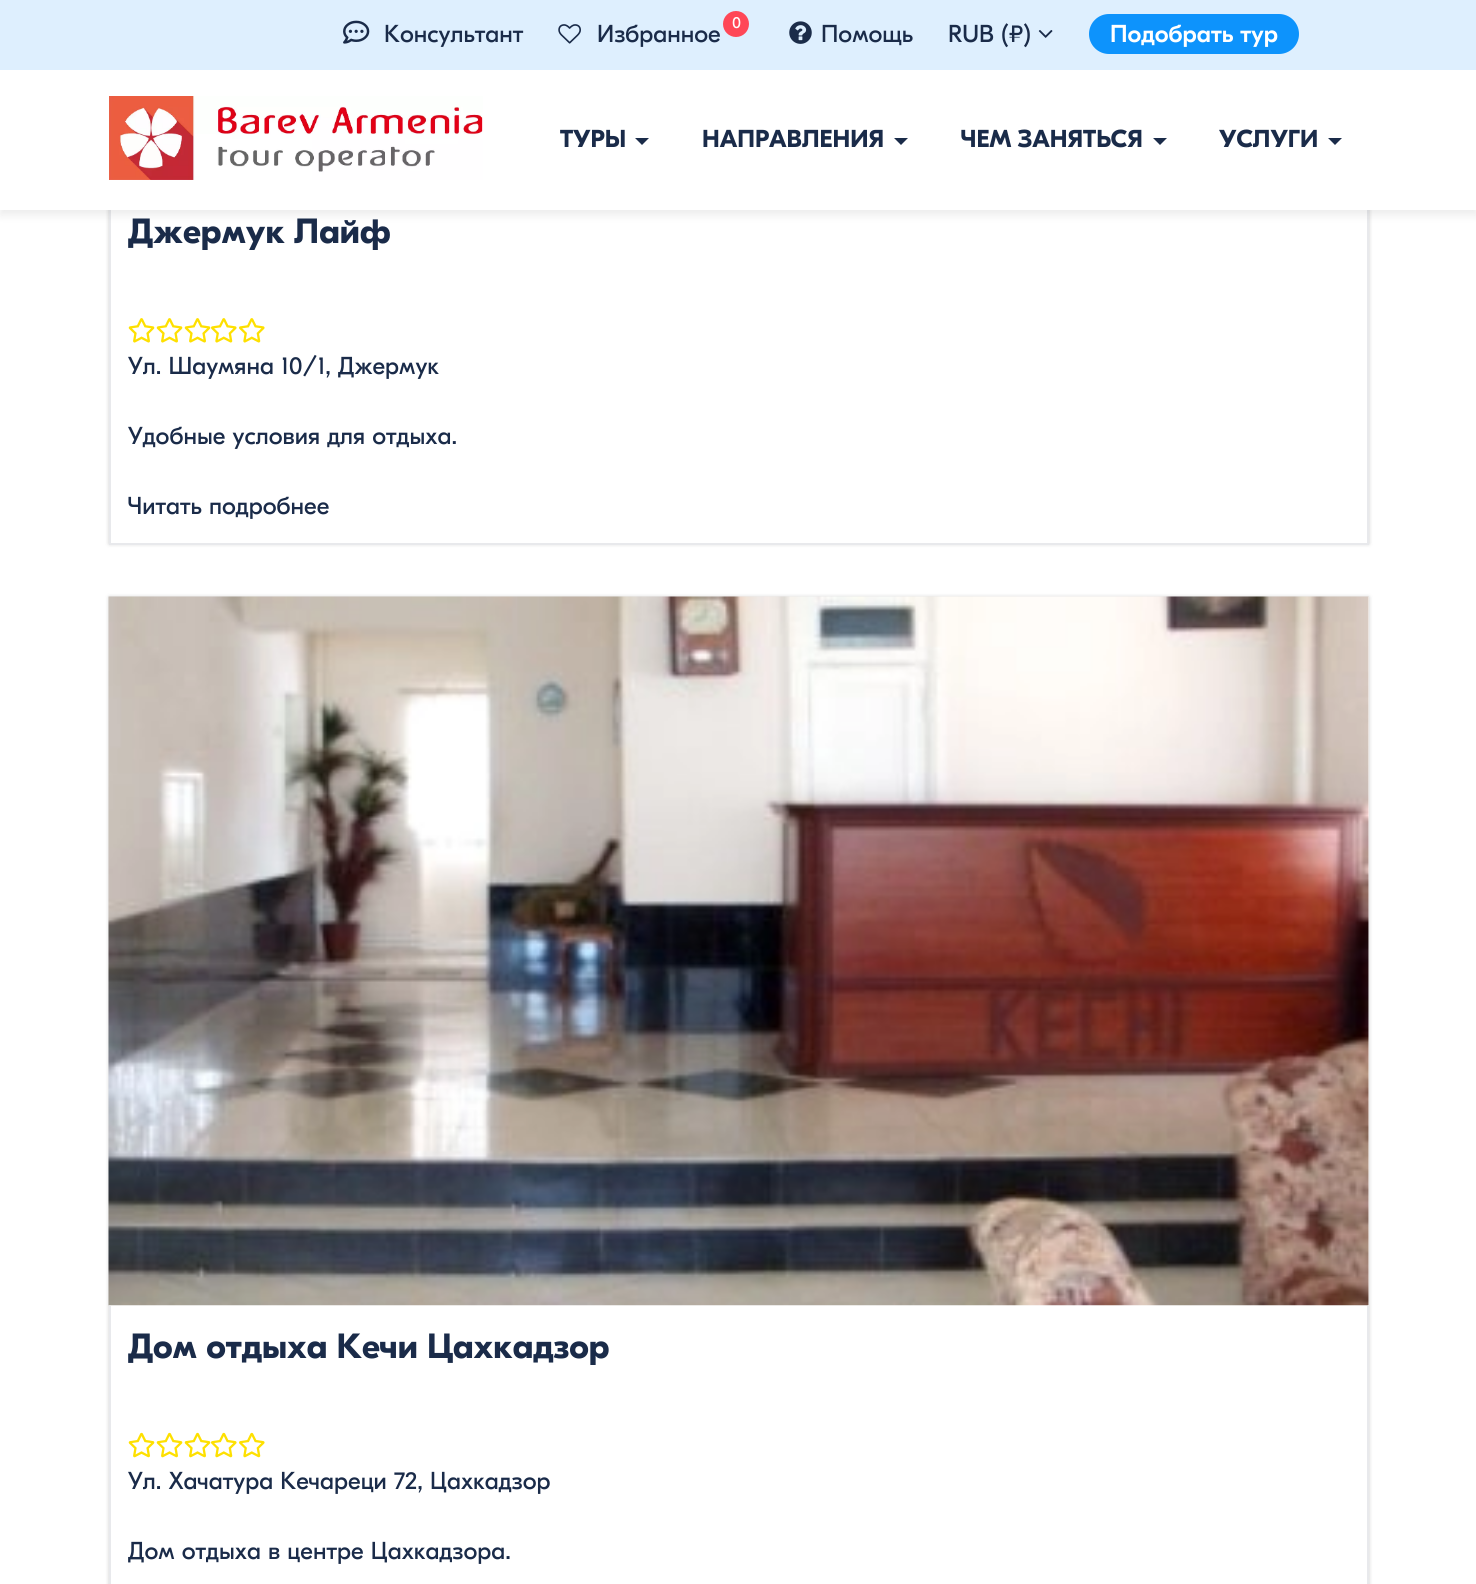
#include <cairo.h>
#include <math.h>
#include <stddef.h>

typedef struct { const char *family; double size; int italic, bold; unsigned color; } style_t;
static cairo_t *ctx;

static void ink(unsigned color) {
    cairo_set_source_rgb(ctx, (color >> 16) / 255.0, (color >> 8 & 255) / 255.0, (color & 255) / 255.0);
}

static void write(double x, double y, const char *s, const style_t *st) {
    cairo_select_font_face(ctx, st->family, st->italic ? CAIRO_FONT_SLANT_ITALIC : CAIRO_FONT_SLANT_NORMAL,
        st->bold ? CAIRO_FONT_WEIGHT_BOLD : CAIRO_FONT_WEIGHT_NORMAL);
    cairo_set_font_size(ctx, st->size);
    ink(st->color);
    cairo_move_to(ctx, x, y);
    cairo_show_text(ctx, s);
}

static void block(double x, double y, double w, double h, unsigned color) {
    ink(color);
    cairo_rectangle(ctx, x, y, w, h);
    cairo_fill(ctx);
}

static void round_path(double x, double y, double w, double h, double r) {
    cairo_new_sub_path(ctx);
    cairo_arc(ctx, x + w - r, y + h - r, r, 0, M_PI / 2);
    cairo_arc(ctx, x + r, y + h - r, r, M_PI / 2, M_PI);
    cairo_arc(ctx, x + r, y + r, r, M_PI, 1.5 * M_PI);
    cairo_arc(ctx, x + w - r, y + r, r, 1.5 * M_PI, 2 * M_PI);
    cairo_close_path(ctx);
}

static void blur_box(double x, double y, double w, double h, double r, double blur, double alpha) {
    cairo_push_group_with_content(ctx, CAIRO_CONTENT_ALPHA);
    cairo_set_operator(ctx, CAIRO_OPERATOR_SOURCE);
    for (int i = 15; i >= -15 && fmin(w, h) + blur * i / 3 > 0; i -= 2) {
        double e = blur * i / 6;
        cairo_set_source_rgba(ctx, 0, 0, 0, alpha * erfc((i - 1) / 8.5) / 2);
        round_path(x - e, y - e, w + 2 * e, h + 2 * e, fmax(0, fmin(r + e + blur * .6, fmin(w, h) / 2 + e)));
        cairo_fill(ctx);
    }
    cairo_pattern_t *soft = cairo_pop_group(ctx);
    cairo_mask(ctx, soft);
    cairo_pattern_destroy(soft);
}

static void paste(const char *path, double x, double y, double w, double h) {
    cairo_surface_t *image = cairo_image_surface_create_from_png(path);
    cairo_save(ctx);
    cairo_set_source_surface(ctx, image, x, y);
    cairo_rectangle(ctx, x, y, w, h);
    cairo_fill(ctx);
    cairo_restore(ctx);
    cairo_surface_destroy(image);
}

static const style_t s1 = {"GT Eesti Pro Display", 24.5, 0, 0, 0x1a2b49};
static const style_t s2 = {"GT Eesti Pro Display", 16, 0, 0, 0xffffff};
static const style_t s3 = {"GT Eesti Pro Display Medium", 24.5, 0, 0, 0xffffff};
static const style_t s4 = {"GT Eesti Pro Display", 24.5, 0, 1, 0x1a2b49};
static const style_t s5 = {"GT Eesti Pro Display", 35, 0, 1, 0x1a2b49};

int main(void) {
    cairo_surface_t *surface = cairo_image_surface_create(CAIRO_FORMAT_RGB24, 1476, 1584);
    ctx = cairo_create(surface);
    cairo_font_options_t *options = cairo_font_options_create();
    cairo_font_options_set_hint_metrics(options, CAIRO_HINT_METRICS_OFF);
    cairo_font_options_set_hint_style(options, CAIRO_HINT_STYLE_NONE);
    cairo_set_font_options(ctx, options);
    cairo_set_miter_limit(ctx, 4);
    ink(0xffffff);
    cairo_paint(ctx);
    cairo_save(ctx);
    cairo_set_fill_rule(ctx, CAIRO_FILL_RULE_EVEN_ODD);
    cairo_new_path(ctx);
    cairo_move_to(ctx, 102, 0);
    cairo_line_to(ctx, 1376, 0);
    cairo_line_to(ctx, 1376, 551);
    cairo_line_to(ctx, 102, 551);
    cairo_close_path(ctx);
    cairo_move_to(ctx, 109, -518);
    cairo_line_to(ctx, 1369, -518);
    cairo_line_to(ctx, 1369, 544);
    cairo_line_to(ctx, 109, 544);
    cairo_close_path(ctx);
    cairo_clip(ctx);
    ink(0x000000);
    blur_box(109, -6, 1260, 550, 0, 2, 0.2);
    cairo_restore(ctx);
    block(1367, 210, 2, 334, 0xe8e9ec);
    block(109, 543, 1260, 2, 0xe8e9ec);
    block(109, 210, 2, 334, 0xe8e9ec);
    ink(0x000000);
    blur_box(0, 5, 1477, 210, 0, 5, 0.08);
    block(0, 70, 1476, 140, 0xffffff);
    block(0, 0, 1476, 70, 0xdeeffe);
    paste("pic1.png", 343, 20, 27, 24);
    write(384, 42, "Консультант", &s1);
    paste("pic2.png", 558, 24, 23, 20);
    write(597, 42, "Избранное", &s1);
    ink(0xff4757);
    cairo_new_path(ctx);
    cairo_arc(ctx, 736, 24, 13, 0, 2 * M_PI);
    cairo_fill(ctx);
    write(732, 28, "0", &s2);
    paste("pic3.png", 789, 21, 23, 23);
    write(821, 42, "Помощь", &s1);
    write(948, 42, "RUB (₽)", &s1);
    paste("pic4.png", 1038, 30, 15, 8);
    ink(0x0d93fc);
    round_path(1089, 14, 210, 40, 20);
    cairo_fill(ctx);
    write(1110, 42, "Подобрать тур", &s3);
    paste("pic5.png", 109, 96, 374, 84);
    write(560, 147, "ТУРЫ", &s4);
    cairo_new_path(ctx);
    cairo_move_to(ctx, 635, 138);
    cairo_line_to(ctx, 649, 138);
    cairo_line_to(ctx, 642, 145);
    cairo_close_path(ctx);
    cairo_fill(ctx);
    write(702, 147, "НАПРАВЛЕНИЯ", &s4);
    cairo_new_path(ctx);
    cairo_move_to(ctx, 894, 138);
    cairo_line_to(ctx, 908, 138);
    cairo_line_to(ctx, 901, 145);
    cairo_close_path(ctx);
    cairo_fill(ctx);
    write(961, 147, "ЧЕМ ЗАНЯТЬСЯ", &s4);
    cairo_new_path(ctx);
    cairo_move_to(ctx, 1153, 138);
    cairo_line_to(ctx, 1167, 138);
    cairo_line_to(ctx, 1160, 145);
    cairo_close_path(ctx);
    cairo_fill(ctx);
    write(1219, 147, "УСЛУГИ", &s4);
    cairo_new_path(ctx);
    cairo_move_to(ctx, 1328, 138);
    cairo_line_to(ctx, 1342, 138);
    cairo_line_to(ctx, 1335, 145);
    cairo_close_path(ctx);
    cairo_fill(ctx);
    write(128, 243, "Джермук Лайф", &s5);
    paste("pic6.png", 128, 318, 27, 25);
    paste("pic6.png", 156, 318, 27, 25);
    paste("pic6.png", 184, 318, 27, 25);
    paste("pic7.png", 211, 318, 26, 25);
    paste("pic7.png", 239, 318, 26, 25);
    write(128, 374, "Ул. Шаумяна 10/1, Джермук", &s1);
    write(128, 444, "Удобные условия для отдыха.", &s1);
    write(128, 514, "Читать подробнее", &s1);
    cairo_save(ctx);
    cairo_set_fill_rule(ctx, CAIRO_FILL_RULE_EVEN_ODD);
    cairo_new_path(ctx);
    cairo_move_to(ctx, 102, 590);
    cairo_line_to(ctx, 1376, 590);
    cairo_line_to(ctx, 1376, 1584);
    cairo_line_to(ctx, 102, 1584);
    cairo_close_path(ctx);
    cairo_move_to(ctx, 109, 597);
    cairo_line_to(ctx, 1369, 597);
    cairo_line_to(ctx, 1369, 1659);
    cairo_line_to(ctx, 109, 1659);
    cairo_close_path(ctx);
    cairo_clip(ctx);
    ink(0x000000);
    blur_box(109, 597, 1260, 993, 0, 2, 0.2);
    cairo_restore(ctx);
    paste("pic8.png", 108, 596, 1261, 710);
    block(1367, 1306, 2, 278, 0xe8e9ec);
    block(109, 1306, 2, 278, 0xe8e9ec);
    write(128, 1358, "Дом отдыха Кечи Цахкадзор", &s5);
    paste("pic9.png", 128, 1432, 27, 26);
    paste("pic9.png", 156, 1432, 27, 26);
    paste("pic9.png", 184, 1432, 27, 26);
    paste("pic10.png", 211, 1432, 26, 26);
    paste("pic10.png", 239, 1432, 26, 26);
    write(128, 1489, "Ул. Хачатура Кечареци 72, Цахкадзор", &s1);
    cairo_save(ctx);
    cairo_rectangle(ctx, 128, 1535, 1221, 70);
    cairo_clip(ctx);
    write(128, 1559, "Дом отдыха в центре Цахкадзора.", &s1);
    cairo_restore(ctx);
    cairo_surface_write_to_png(surface, "screenshot.png");
    cairo_font_options_destroy(options);
    cairo_destroy(ctx);
    cairo_surface_destroy(surface);
    return 0;
}
